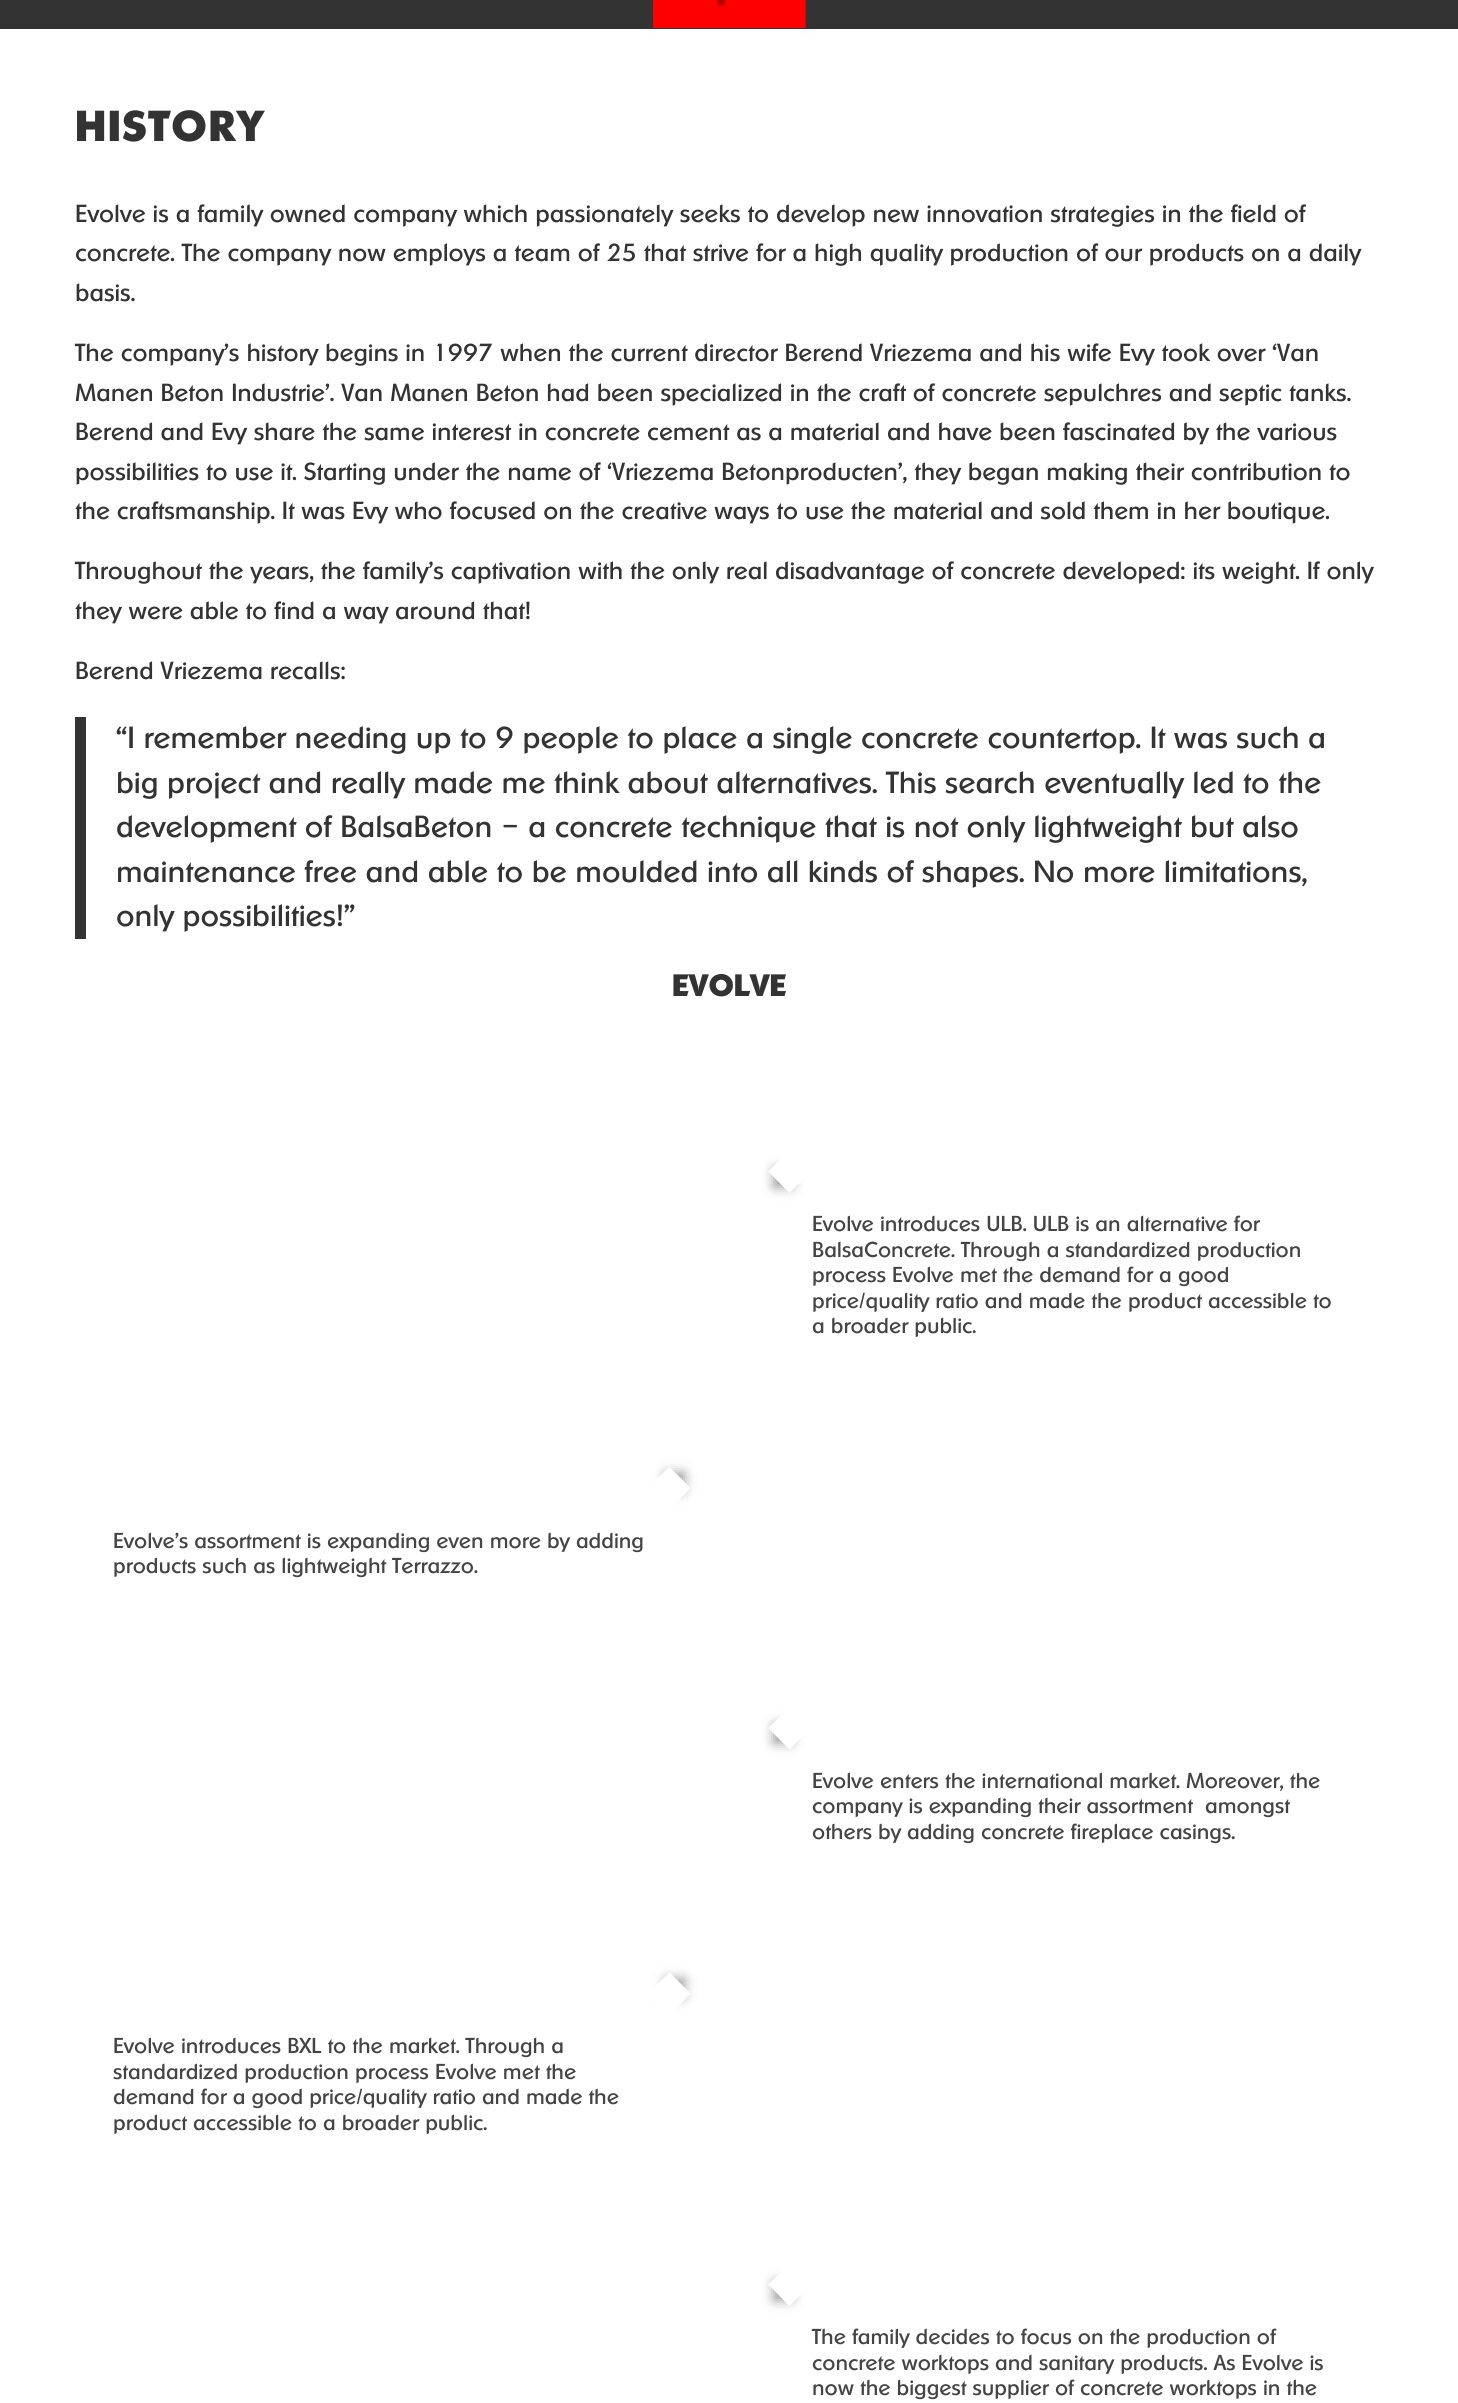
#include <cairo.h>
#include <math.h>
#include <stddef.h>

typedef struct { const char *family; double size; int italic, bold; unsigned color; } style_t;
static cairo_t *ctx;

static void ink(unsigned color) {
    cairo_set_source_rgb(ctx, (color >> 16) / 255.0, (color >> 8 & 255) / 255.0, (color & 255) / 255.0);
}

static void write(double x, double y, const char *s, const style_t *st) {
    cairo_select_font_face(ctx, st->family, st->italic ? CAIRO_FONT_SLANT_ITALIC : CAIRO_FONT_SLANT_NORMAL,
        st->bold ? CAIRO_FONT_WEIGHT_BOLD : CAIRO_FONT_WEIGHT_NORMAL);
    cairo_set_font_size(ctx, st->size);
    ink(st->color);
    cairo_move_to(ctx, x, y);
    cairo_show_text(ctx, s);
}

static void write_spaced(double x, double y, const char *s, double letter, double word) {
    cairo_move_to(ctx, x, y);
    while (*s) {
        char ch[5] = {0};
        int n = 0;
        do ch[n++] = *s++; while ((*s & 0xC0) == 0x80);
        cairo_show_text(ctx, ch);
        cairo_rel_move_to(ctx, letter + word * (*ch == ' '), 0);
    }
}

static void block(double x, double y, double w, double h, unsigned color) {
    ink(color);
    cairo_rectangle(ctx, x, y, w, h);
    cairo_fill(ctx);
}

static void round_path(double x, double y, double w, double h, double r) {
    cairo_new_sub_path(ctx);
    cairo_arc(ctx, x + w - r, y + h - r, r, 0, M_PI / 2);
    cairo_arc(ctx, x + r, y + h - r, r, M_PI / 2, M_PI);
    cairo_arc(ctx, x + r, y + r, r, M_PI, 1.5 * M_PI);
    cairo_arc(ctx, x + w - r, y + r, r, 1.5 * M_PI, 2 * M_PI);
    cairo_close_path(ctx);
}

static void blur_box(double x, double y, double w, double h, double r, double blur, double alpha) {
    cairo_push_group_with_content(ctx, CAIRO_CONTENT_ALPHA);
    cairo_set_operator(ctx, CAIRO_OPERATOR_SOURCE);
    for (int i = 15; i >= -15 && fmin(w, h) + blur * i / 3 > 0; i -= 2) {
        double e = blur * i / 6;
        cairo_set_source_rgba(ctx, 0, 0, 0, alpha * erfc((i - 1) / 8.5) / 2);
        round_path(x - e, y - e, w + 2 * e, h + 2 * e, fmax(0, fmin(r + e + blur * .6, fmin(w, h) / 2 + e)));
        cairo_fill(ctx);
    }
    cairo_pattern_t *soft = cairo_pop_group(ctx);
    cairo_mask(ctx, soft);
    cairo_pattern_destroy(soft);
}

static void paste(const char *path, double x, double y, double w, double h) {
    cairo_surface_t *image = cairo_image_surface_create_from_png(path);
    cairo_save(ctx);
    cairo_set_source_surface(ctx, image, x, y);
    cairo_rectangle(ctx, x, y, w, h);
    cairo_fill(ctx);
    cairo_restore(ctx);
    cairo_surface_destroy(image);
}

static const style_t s1 = {"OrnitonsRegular", 24, 0, 0, 0x333333};
static const style_t s2 = {"OrnitonsRegular", 29.65, 0, 0, 0x333333};
static const style_t s3 = {"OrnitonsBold", 30, 0, 1, 0x333333};
static const style_t s4 = {"OrnitonsRegular", 21, 0, 0, 0x444444};

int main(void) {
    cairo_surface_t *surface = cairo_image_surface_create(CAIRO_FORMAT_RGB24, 1458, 2403);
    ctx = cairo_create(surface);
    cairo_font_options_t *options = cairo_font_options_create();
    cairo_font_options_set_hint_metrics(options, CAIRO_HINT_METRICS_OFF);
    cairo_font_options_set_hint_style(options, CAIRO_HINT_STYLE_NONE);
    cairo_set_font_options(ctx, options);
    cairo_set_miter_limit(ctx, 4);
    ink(0x333333);
    cairo_paint(ctx);
    paste("pic1.png", 652, 0, 154, 28);
    block(0, 29, 1458, 2374, 0xffffff);
    cairo_select_font_face(ctx, "OrnitonsBold", CAIRO_FONT_SLANT_NORMAL, CAIRO_FONT_WEIGHT_BOLD);
    cairo_set_font_size(ctx, 42);
    ink(0x333333);
    write_spaced(75, 141, "HISTORY", 1.5, 0);
    write(75, 222, "Evolve is a family owned company which passionately seeks to develop new innovation strategies in the field of", &s1);
    write(75, 261, "concrete. The company now employs a team of 25 that strive for a high quality production of our products on a daily", &s1);
    write(75, 301, "basis.", &s1);
    write(75, 361, "The company’s history begins in 1997 when the current director Berend Vriezema and his wife Evy took over ‘Van", &s1);
    write(75, 401, "Manen Beton Industrie’. Van Manen Beton had been specialized in the craft of concrete sepulchres and septic tanks.", &s1);
    write(75, 440, "Berend and Evy share the same interest in concrete cement as a material and have been fascinated by the various", &s1);
    write(75, 480, "possibilities to use it. Starting under the name of ‘Vriezema Betonproducten’, they began making their contribution to", &s1);
    write(75, 519, "the craftsmanship. It was Evy who focused on the creative ways to use the material and sold them in her boutique.", &s1);
    write(75, 579, "Throughout the years, the family’s captivation with the only real disadvantage of concrete developed: its weight. If only", &s1);
    write(75, 619, "they were able to find a way around that!", &s1);
    write(75, 679, "Berend Vriezema recalls:", &s1);
    block(75, 717, 11, 222, 0x333333);
    write(116, 748, "“I remember needing up to 9 people to place a single concrete countertop. It was such a", &s2);
    write(116, 793, "big project and really made me think about alternatives. This search eventually led to the", &s2);
    write(116, 837, "development of BalsaBeton – a concrete technique that is not only lightweight but also", &s2);
    write(116, 882, "maintenance free and able to be moulded into all kinds of shapes. No more limitations,", &s2);
    write(116, 926, "only possibilities!”", &s2);
    write(672, 996, "EVOLVE", &s3);
    cairo_save(ctx);
    cairo_set_fill_rule(ctx, CAIRO_FILL_RULE_EVEN_ODD);
    cairo_new_path(ctx);
    cairo_move_to(ctx, 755, 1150);
    cairo_line_to(ctx, 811, 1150);
    cairo_line_to(ctx, 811, 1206);
    cairo_line_to(ctx, 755, 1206);
    cairo_close_path(ctx);
    cairo_move_to(ctx, 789.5, 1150.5);
    cairo_line_to(ctx, 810.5, 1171.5);
    cairo_line_to(ctx, 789.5, 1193);
    cairo_line_to(ctx, 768.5, 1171.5);
    cairo_close_path(ctx);
    cairo_clip(ctx);
    ink(0x000000);
    blur_box(774, 1169, 18, 18, 0, 6, 0.4);
    cairo_restore(ctx);
    write(812, 1231, "Evolve introduces ULB. ULB is an alternative for", &s4);
    write(812, 1257, "BalsaConcrete. Through a standardized production", &s4);
    write(812, 1282, "process Evolve met the demand for a good", &s4);
    write(812, 1308, "price/quality ratio and made the product accessible to", &s4);
    write(812, 1333, "a broader public.", &s4);
    cairo_save(ctx);
    cairo_set_fill_rule(ctx, CAIRO_FILL_RULE_EVEN_ODD);
    cairo_new_path(ctx);
    cairo_move_to(ctx, 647, 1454);
    cairo_line_to(ctx, 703, 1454);
    cairo_line_to(ctx, 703, 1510);
    cairo_line_to(ctx, 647, 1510);
    cairo_close_path(ctx);
    cairo_move_to(ctx, 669.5, 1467);
    cairo_line_to(ctx, 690.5, 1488);
    cairo_line_to(ctx, 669.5, 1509.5);
    cairo_line_to(ctx, 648, 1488);
    cairo_close_path(ctx);
    cairo_clip(ctx);
    ink(0x000000);
    blur_box(666, 1473, 18, 18, 0, 6, 0.4);
    cairo_restore(ctx);
    write(113, 1548, "Evolve’s assortment is expanding even more by adding", &s4);
    write(113, 1573, "products such as lightweight Terrazzo.", &s4);
    cairo_save(ctx);
    cairo_set_fill_rule(ctx, CAIRO_FILL_RULE_EVEN_ODD);
    cairo_new_path(ctx);
    cairo_move_to(ctx, 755, 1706);
    cairo_line_to(ctx, 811, 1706);
    cairo_line_to(ctx, 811, 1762);
    cairo_line_to(ctx, 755, 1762);
    cairo_close_path(ctx);
    cairo_move_to(ctx, 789.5, 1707);
    cairo_line_to(ctx, 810.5, 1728);
    cairo_line_to(ctx, 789.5, 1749.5);
    cairo_line_to(ctx, 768.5, 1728);
    cairo_close_path(ctx);
    cairo_clip(ctx);
    ink(0x000000);
    blur_box(774, 1725, 18, 18, 0, 6, 0.4);
    cairo_restore(ctx);
    write(812, 1788, "Evolve enters the international market. Moreover, the", &s4);
    write(812, 1813, "company is expanding their assortment  amongst", &s4);
    write(812, 1839, "others by adding concrete fireplace casings.", &s4);
    cairo_save(ctx);
    cairo_set_fill_rule(ctx, CAIRO_FILL_RULE_EVEN_ODD);
    cairo_new_path(ctx);
    cairo_move_to(ctx, 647, 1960);
    cairo_line_to(ctx, 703, 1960);
    cairo_line_to(ctx, 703, 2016);
    cairo_line_to(ctx, 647, 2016);
    cairo_close_path(ctx);
    cairo_move_to(ctx, 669.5, 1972.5);
    cairo_line_to(ctx, 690.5, 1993.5);
    cairo_line_to(ctx, 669.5, 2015);
    cairo_line_to(ctx, 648, 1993.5);
    cairo_close_path(ctx);
    cairo_clip(ctx);
    ink(0x000000);
    blur_box(666, 1979, 18, 18, 0, 6, 0.4);
    cairo_restore(ctx);
    write(113, 2053, "Evolve introduces BXL to the market. Through a", &s4);
    write(113, 2079, "standardized production process Evolve met the", &s4);
    write(113, 2104, "demand for a good price/quality ratio and made the", &s4);
    write(113, 2130, "product accessible to a broader public.", &s4);
    cairo_save(ctx);
    cairo_set_fill_rule(ctx, CAIRO_FILL_RULE_EVEN_ODD);
    cairo_new_path(ctx);
    cairo_move_to(ctx, 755, 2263);
    cairo_line_to(ctx, 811, 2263);
    cairo_line_to(ctx, 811, 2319);
    cairo_line_to(ctx, 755, 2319);
    cairo_close_path(ctx);
    cairo_move_to(ctx, 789.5, 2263.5);
    cairo_line_to(ctx, 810.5, 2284.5);
    cairo_line_to(ctx, 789.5, 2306);
    cairo_line_to(ctx, 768.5, 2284.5);
    cairo_close_path(ctx);
    cairo_clip(ctx);
    ink(0x000000);
    blur_box(774, 2282, 18, 18, 0, 6, 0.4);
    cairo_restore(ctx);
    write(812, 2344, "The family decides to focus on the production of", &s4);
    write(812, 2370, "concrete worktops and sanitary products. As Evolve is", &s4);
    write(812, 2395, "now the biggest supplier of concrete worktops in the", &s4);
    cairo_surface_write_to_png(surface, "screenshot.png");
    cairo_font_options_destroy(options);
    cairo_destroy(ctx);
    cairo_surface_destroy(surface);
    return 0;
}
